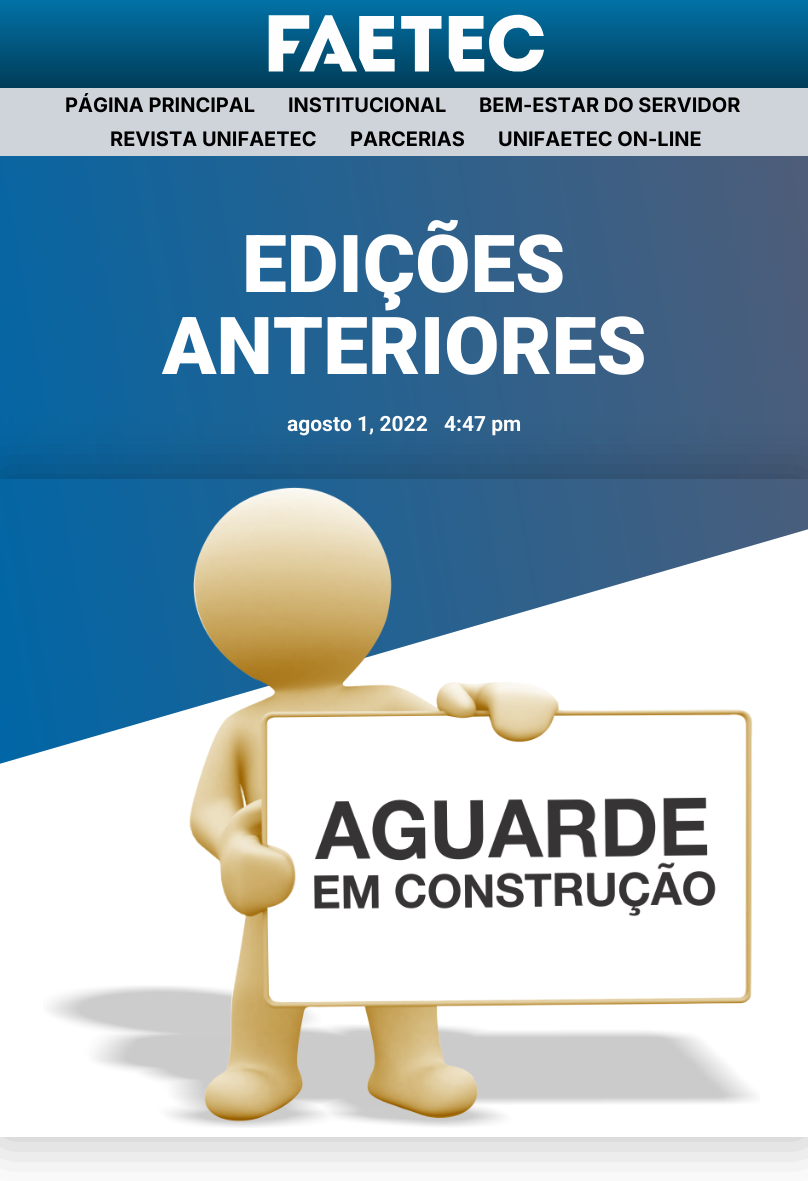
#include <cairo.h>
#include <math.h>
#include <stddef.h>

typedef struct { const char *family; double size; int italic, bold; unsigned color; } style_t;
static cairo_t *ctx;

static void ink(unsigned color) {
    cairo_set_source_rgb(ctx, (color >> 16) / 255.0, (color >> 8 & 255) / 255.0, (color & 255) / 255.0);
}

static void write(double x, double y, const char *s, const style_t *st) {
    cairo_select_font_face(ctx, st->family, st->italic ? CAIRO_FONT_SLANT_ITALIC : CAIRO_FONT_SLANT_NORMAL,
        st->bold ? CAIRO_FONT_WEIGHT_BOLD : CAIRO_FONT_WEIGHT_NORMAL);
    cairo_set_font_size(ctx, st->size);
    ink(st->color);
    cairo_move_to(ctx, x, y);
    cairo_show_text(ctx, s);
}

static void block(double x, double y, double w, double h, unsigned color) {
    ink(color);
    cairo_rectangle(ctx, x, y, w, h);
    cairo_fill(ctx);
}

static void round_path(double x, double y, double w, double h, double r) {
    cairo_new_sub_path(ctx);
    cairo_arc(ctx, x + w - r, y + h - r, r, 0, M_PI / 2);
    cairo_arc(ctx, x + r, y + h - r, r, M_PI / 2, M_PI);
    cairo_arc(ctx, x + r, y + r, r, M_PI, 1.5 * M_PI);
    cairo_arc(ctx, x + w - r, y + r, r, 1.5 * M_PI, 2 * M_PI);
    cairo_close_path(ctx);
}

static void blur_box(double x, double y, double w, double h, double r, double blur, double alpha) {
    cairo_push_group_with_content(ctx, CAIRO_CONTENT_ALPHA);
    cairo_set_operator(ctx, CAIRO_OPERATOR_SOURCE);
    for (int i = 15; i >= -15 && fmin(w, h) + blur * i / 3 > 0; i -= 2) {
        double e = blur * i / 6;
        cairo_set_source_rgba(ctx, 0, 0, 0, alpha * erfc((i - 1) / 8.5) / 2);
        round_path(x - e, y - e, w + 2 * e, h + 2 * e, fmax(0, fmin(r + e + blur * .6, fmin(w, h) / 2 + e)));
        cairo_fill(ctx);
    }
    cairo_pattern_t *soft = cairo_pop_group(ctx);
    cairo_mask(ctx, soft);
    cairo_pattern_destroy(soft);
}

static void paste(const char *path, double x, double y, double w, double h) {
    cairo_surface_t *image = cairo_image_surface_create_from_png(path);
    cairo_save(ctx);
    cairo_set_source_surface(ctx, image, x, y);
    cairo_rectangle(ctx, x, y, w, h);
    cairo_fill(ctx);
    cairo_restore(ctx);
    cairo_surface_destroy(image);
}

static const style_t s1 = {"Inter", 20, 0, 1, 0x000000};
static const style_t s2 = {"Roboto Black", 80, 0, 0, 0xffffff};
static const style_t s3 = {"Roboto", 21, 0, 1, 0xffffff};

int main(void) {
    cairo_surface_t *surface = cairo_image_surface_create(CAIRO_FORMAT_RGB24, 808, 1181);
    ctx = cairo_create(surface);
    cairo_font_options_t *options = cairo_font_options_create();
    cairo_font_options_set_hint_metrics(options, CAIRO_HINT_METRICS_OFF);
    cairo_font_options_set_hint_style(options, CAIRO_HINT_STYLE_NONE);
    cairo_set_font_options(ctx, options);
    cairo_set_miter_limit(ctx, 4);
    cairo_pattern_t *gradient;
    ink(0xffffff);
    cairo_paint(ctx);
    gradient = cairo_pattern_create_linear(404, 0, 404, 156);
    cairo_pattern_add_color_stop_rgba(gradient, 0, 0.008, 0.447, 0.655, 1);
    cairo_pattern_add_color_stop_rgba(gradient, 0.6, 0.004, 0.224, 0.325, 1);
    cairo_set_source(ctx, gradient);
    cairo_pattern_destroy(gradient);
    cairo_rectangle(ctx, 0, 0, 808, 88);
    cairo_fill(ctx);
    paste("pic1.png", 268, 14, 276, 58);
    block(0, 88, 808, 68, 0xced4da);
    write(65, 112, "PÁGINA PRINCIPAL", &s1);
    write(288, 112, "INSTITUCIONAL", &s1);
    write(479, 112, "BEM-ESTAR DO SERVIDOR", &s1);
    write(110, 146, "REVISTA UNIFAETEC", &s1);
    write(350, 146, "PARCERIAS", &s1);
    write(498, 146, "UNIFAETEC ON-LINE", &s1);
    gradient = cairo_pattern_create_linear(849, 389, -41, 546);
    cairo_pattern_add_color_stop_rgba(gradient, 0, 0.306, 0.365, 0.475, 1);
    cairo_pattern_add_color_stop_rgba(gradient, 1, 0, 0.4, 0.651, 1);
    cairo_set_source(ctx, gradient);
    cairo_pattern_destroy(gradient);
    cairo_rectangle(ctx, 0, 156, 808, 608);
    cairo_fill(ctx);
    write(242, 292, "EDIÇÕES", &s2);
    write(162, 374, "ANTERIORES", &s2);
    write(287, 431, "agosto 1, 2022", &s3);
    write(444, 431, "4:47 pm", &s3);
    cairo_new_path(ctx);
    cairo_move_to(ctx, -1, 764);
    cairo_line_to(ctx, -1, 779);
    cairo_line_to(ctx, 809, 779);
    cairo_line_to(ctx, 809, 529);
    cairo_close_path(ctx);
    cairo_fill(ctx);
    cairo_save(ctx);
    cairo_set_fill_rule(ctx, CAIRO_FILL_RULE_EVEN_ODD);
    cairo_new_path(ctx);
    cairo_move_to(ctx, 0, 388);
    cairo_line_to(ctx, 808, 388);
    cairo_line_to(ctx, 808, 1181);
    cairo_line_to(ctx, 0, 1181);
    cairo_close_path(ctx);
    cairo_move_to(ctx, 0, 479);
    cairo_line_to(ctx, 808, 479);
    cairo_line_to(ctx, 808, 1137);
    cairo_line_to(ctx, 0, 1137);
    cairo_close_path(ctx);
    cairo_clip(ctx);
    ink(0x000000);
    blur_box(0, 479, 808, 658, 0, 30, 0.28);
    cairo_restore(ctx);
    paste("pic2.png", 43, 487, 717, 641);
    cairo_surface_write_to_png(surface, "screenshot.png");
    cairo_font_options_destroy(options);
    cairo_destroy(ctx);
    cairo_surface_destroy(surface);
    return 0;
}
